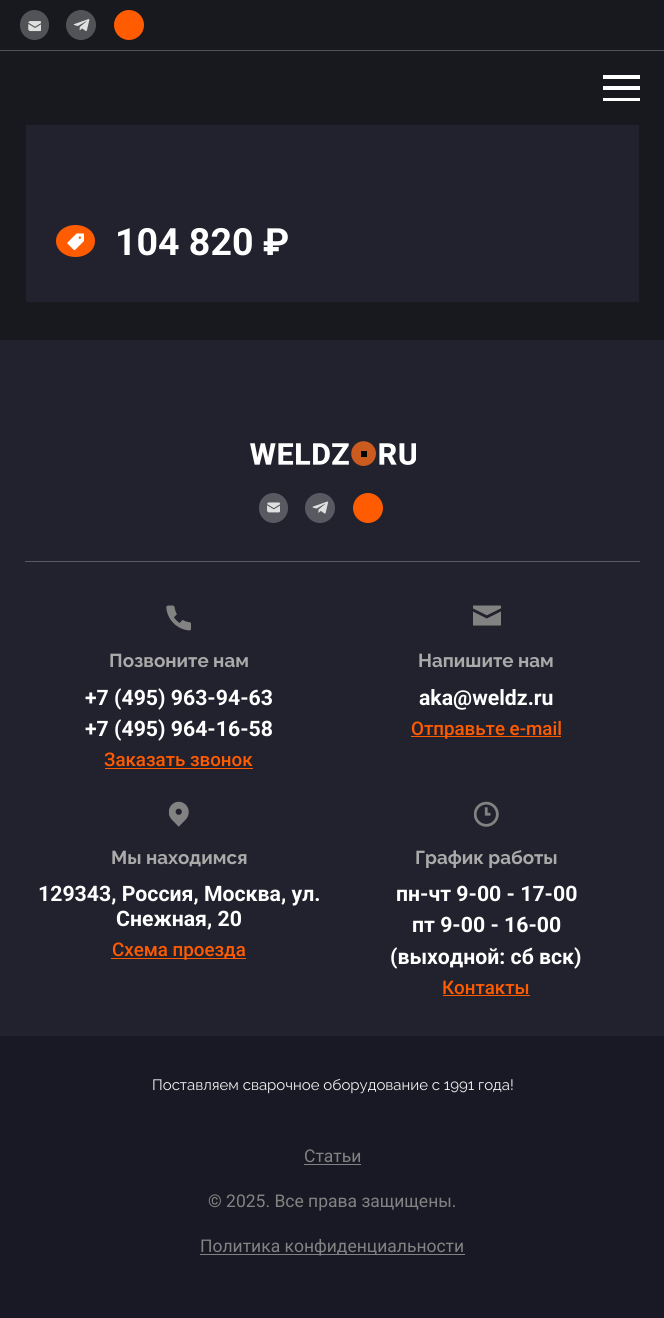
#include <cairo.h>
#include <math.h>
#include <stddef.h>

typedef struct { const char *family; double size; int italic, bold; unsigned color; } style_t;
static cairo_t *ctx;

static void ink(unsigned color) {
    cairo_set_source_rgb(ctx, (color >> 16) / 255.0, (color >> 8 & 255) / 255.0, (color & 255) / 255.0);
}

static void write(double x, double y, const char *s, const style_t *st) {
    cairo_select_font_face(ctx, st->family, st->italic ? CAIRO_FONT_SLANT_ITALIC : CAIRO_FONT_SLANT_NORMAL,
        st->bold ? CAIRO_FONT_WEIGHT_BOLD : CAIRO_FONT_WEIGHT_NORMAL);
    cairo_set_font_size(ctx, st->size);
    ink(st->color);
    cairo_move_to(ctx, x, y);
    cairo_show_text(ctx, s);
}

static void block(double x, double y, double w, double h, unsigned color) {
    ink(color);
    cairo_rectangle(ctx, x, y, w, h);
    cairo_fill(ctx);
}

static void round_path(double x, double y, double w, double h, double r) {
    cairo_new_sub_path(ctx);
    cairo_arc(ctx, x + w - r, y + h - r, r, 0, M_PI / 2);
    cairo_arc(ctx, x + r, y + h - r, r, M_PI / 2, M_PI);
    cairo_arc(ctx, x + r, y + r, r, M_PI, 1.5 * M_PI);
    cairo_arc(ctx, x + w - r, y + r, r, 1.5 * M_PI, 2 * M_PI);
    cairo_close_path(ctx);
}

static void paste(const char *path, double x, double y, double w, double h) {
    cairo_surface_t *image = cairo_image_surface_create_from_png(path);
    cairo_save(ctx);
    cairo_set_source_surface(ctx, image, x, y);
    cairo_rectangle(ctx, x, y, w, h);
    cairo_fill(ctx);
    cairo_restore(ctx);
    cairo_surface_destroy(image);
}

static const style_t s1 = {"Roboto", 37.5, 0, 1, 0xffffff};
static const style_t s2 = {"Raleway", 18.75, 0, 1, 0xaaaaaa};
static const style_t s3 = {"Roboto", 21.25, 0, 1, 0xffffff};
static const style_t s4 = {"Roboto Medium", 18.75, 0, 0, 0xff5b00};
static const style_t s5 = {"Raleway", 15, 0, 0, 0xf2f2f2};
static const style_t s6 = {"Roboto", 17.5, 0, 0, 0x828282};

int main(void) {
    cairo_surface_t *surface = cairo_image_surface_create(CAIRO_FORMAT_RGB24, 664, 1318);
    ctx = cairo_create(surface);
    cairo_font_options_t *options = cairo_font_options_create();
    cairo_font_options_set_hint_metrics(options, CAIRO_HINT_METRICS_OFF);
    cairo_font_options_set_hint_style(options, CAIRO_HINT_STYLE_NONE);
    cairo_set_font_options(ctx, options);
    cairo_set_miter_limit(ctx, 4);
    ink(0x22222e);
    cairo_paint(ctx);
    block(0, 125, 664, 215, 0x18191f);
    ink(0x22222e);
    round_path(25.5, -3.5, 614, 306, 2);
    cairo_fill_preserve(ctx);
    ink(0x181921);
    cairo_set_line_width(ctx, 1);
    cairo_stroke(ctx);
    block(0, 0, 664, 125, 0x18191f);
    ink(0x525357);
    round_path(20, 10, 29, 30, 14.5);
    cairo_fill(ctx);
    paste("pic1.png", 28, 21, 13, 11);
    cairo_arc(ctx, 81, 25, 15, 0, 2 * M_PI);
    cairo_fill(ctx);
    paste("pic2.png", 73, 19, 17, 12);
    ink(0xff5b00);
    cairo_arc(ctx, 129, 25, 15, 0, 2 * M_PI);
    cairo_fill(ctx);
    block(0, 50, 664, 1, 0x525357);
    block(603, 75, 37, 4, 0xffffff);
    block(603, 86, 37, 4, 0xffffff);
    block(603, 98, 37, 3, 0xffffff);
    ink(0xff5b00);
    cairo_new_path(ctx);
    cairo_move_to(ctx, 75.5, 225);
    cairo_curve_to(ctx, 86.5, 225, 95, 232, 95, 241);
    cairo_curve_to(ctx, 95, 250, 86.5, 257, 75.5, 257);
    cairo_curve_to(ctx, 64.5, 257, 56, 250, 56, 241);
    cairo_curve_to(ctx, 56, 232, 64.5, 225, 75.5, 225);
    cairo_close_path(ctx);
    cairo_fill(ctx);
    paste("pic3.png", 67, 233, 17, 17);
    write(115, 255, "104 820 ₽", &s1);
    block(25, 561, 615, 1, 0x595962);
    paste("pic4.png", 250, 441, 166, 25);
    round_path(259, 493, 29, 30, 14.5);
    cairo_fill(ctx);
    paste("pic5.png", 267, 502, 13, 11);
    cairo_arc(ctx, 320, 508, 15, 0, 2 * M_PI);
    cairo_fill(ctx);
    paste("pic6.png", 312, 501, 17, 13);
    ink(0xff5b00);
    cairo_arc(ctx, 368, 508, 15, 0, 2 * M_PI);
    cairo_fill(ctx);
    paste("pic7.png", 166, 605, 25, 26);
    write(109, 667, "Позвоните нам", &s2);
    write(85, 705, "+7 (495) 963-94-63", &s3);
    write(85, 736, "+7 (495) 964-16-58", &s3);
    write(104, 766, "Заказать звонок", &s4);
    block(105, 768, 148, 1, 0xff5b00);
    paste("pic8.png", 473, 605, 28, 21);
    write(418, 667, "Напишите нам", &s2);
    write(419, 705, "aka@weldz.ru", &s3);
    block(411, 736, 150, 1, 0xff5b00);
    write(411, 735, "Отправьте e-mail", &s4);
    paste("pic9.png", 169, 801, 20, 26);
    write(111, 864, "Мы находимся", &s2);
    write(38, 901, "129343, Россия, Москва, ул.", &s3);
    write(116, 926, "Снежная, 20", &s3);
    block(111, 958, 135, 1, 0xff5b00);
    write(112, 956, "Схема проезда", &s4);
    paste("pic10.png", 474, 801, 25, 26);
    write(415, 864, "График работы", &s2);
    write(396, 901, "пн-чт 9-00 - 17-00", &s3);
    write(412, 932, "пт 9-00 - 16-00", &s3);
    write(390, 964, "(выходной: сб вск)", &s3);
    write(442, 994, "Контакты", &s4);
    block(443, 995, 87, 1, 0xff5b00);
    block(0, 1036, 664, 282, 0x191925);
    write(152, 1090, "Поставляем сварочное оборудование с 1991 года!", &s5);
    write(304, 1162, "Статьи", &s6);
    block(304, 1164, 57, 1, 0x828282);
    write(208, 1207, "© 2025. Все права защищены.", &s6);
    block(200, 1254, 265, 1, 0x828282);
    write(200, 1252, "Политика конфиденциальности", &s6);
    cairo_surface_write_to_png(surface, "screenshot.png");
    cairo_font_options_destroy(options);
    cairo_destroy(ctx);
    cairo_surface_destroy(surface);
    return 0;
}
